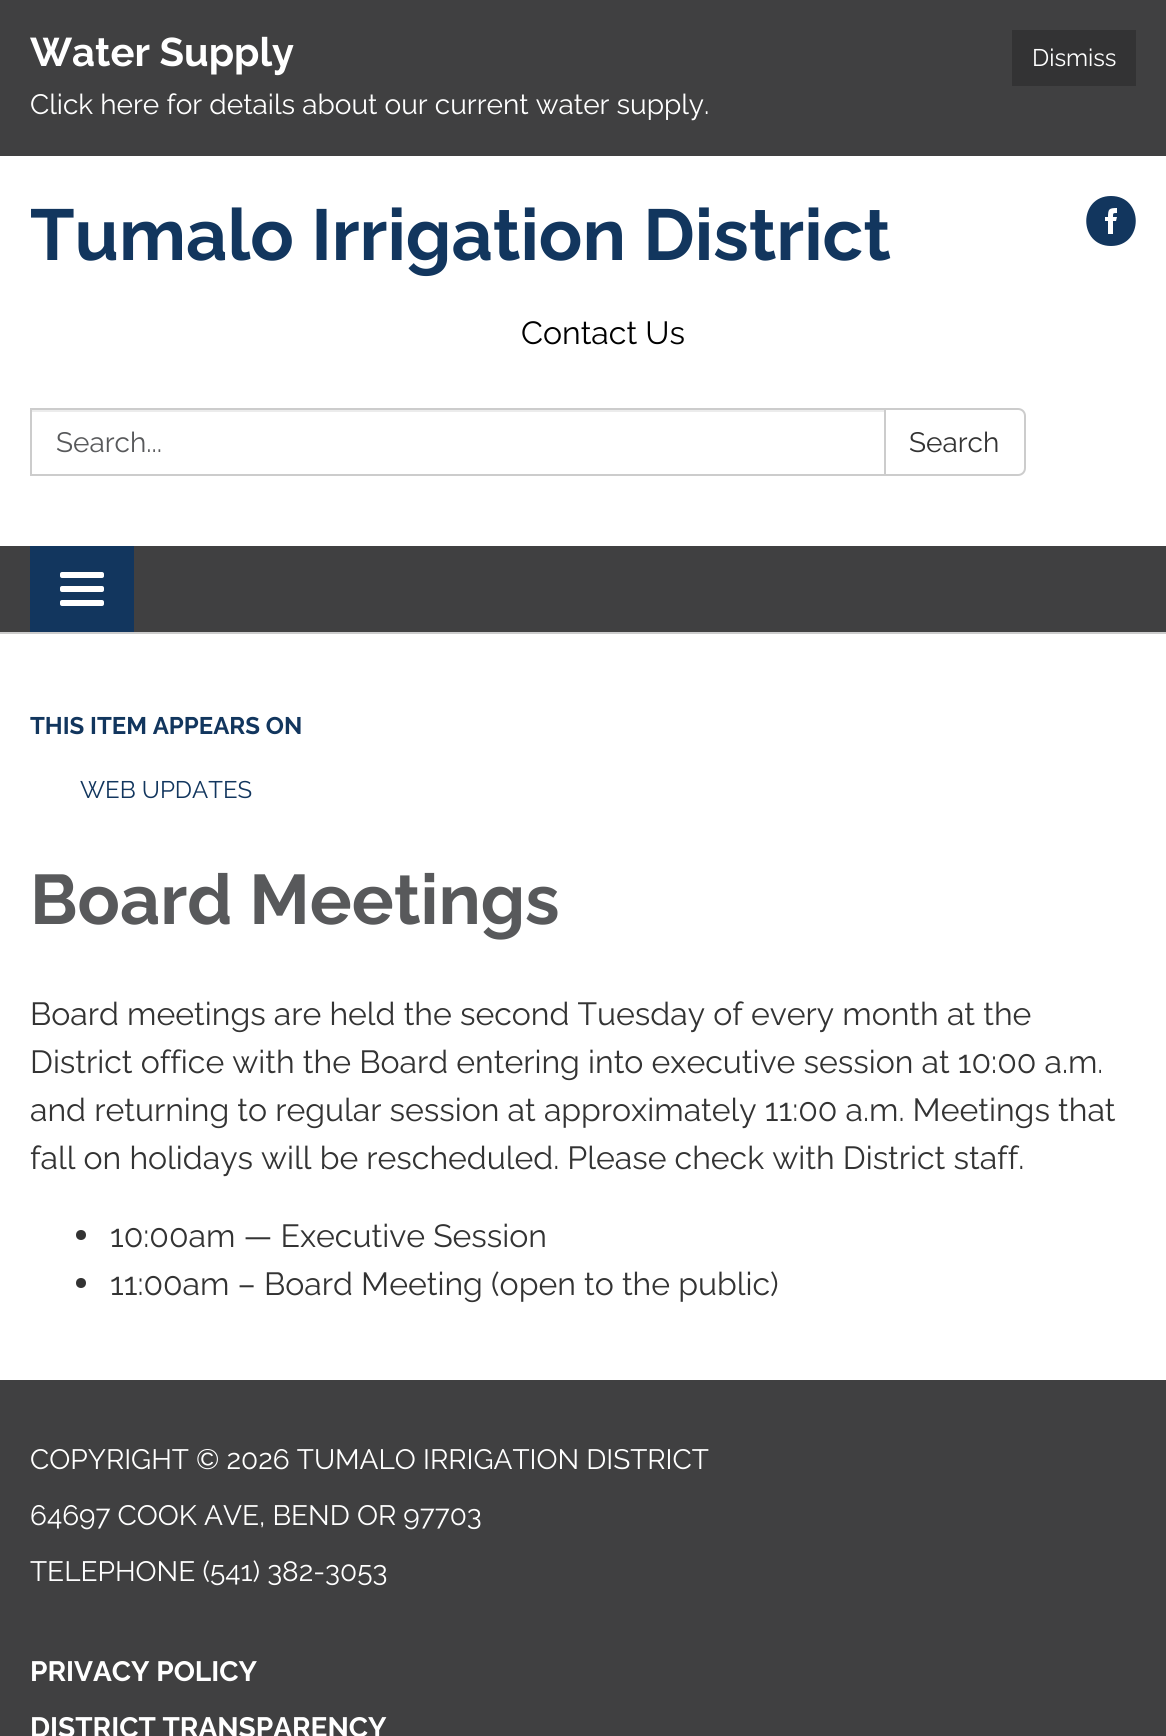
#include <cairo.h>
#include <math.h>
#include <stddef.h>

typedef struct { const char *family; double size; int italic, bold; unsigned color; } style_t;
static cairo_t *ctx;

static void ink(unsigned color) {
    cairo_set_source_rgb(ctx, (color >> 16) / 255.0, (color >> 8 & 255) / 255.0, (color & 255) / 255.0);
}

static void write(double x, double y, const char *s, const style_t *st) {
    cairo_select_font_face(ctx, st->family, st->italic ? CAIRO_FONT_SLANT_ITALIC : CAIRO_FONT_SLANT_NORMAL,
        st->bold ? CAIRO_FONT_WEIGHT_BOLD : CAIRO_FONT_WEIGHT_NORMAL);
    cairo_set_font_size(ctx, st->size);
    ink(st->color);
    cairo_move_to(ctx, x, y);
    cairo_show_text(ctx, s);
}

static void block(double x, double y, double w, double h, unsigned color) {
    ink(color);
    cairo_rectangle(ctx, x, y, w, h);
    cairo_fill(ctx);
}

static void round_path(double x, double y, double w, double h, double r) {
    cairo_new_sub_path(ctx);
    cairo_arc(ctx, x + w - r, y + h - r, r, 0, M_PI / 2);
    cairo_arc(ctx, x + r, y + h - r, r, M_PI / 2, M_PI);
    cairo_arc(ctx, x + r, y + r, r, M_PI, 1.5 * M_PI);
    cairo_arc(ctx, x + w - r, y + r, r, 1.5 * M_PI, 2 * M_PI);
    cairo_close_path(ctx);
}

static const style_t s1 = {"Raleway", 40, 0, 1, 0xffffff};
static const style_t s2 = {"Raleway", 24, 0, 0, 0xffffff};
static const style_t s3 = {"Raleway", 28, 0, 0, 0xffffff};
static const style_t s4 = {"Raleway", 72, 0, 1, 0x12365e};
static const style_t s5 = {"Raleway", 32, 0, 0, 0x000000};
static const style_t s6 = {"Raleway", 28, 0, 0, 0x58595b};
static const style_t s7 = {"Raleway", 28, 0, 0, 0x333333};
static const style_t s8 = {"Raleway", 24, 0, 1, 0x12365e};
static const style_t s9 = {"Raleway", 24, 0, 0, 0x12365e};
static const style_t s10 = {"Raleway", 70, 0, 1, 0x58595b};
static const style_t s11 = {"Raleway", 32, 0, 0, 0x333333};
static const style_t s12 = {"Raleway", 28, 0, 1, 0xffffff};

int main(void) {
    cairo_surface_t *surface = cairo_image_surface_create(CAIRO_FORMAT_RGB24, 1166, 1736);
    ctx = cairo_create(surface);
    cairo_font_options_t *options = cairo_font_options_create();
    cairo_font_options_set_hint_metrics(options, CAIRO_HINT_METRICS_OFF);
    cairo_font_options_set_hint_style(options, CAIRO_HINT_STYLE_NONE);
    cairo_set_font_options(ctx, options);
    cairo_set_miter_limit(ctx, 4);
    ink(0x404041);
    cairo_paint(ctx);
    write(30, 66, "Water Supply", &s1);
    block(1012, 30, 124, 56, 0x333334);
    write(1032, 66, "Dismiss", &s2);
    write(30, 114, "Click here for details about our current water supply.", &s3);
    block(0, 156, 1166, 390, 0xffffff);
    write(30, 260, "Tumalo Irrigation District", &s4);
    cairo_new_path(ctx);
    cairo_move_to(ctx, 1111, 196);
    cairo_curve_to(ctx, 1078, 196, 1078, 246, 1111, 246);
    cairo_curve_to(ctx, 1144, 246, 1144, 196, 1111, 196);
    cairo_close_path(ctx);
    cairo_move_to(ctx, 1116, 221);
    cairo_line_to(ctx, 1113, 221);
    cairo_line_to(ctx, 1113, 234);
    cairo_line_to(ctx, 1108, 234);
    cairo_line_to(ctx, 1108, 221);
    cairo_line_to(ctx, 1105, 221);
    cairo_line_to(ctx, 1105, 217);
    cairo_line_to(ctx, 1108, 217);
    cairo_curve_to(ctx, 1108, 209, 1109, 208, 1117, 208);
    cairo_line_to(ctx, 1117, 213);
    cairo_curve_to(ctx, 1113, 213, 1113, 213, 1113, 217);
    cairo_line_to(ctx, 1117, 217);
    cairo_close_path(ctx);
    cairo_fill(ctx);
    write(521, 344, "Contact Us", &s5);
    block(32, 410, 852, 2, 0xececec);
    cairo_rectangle(ctx, 31, 409, 854, 66);
    ink(0xcccccc);
    cairo_stroke(ctx);
    write(56, 452, "Search...", &s6);
    ink(0xffffff);
    cairo_new_path(ctx);
    cairo_move_to(ctx, 885, 409);
    cairo_line_to(ctx, 1018, 409);
    cairo_curve_to(ctx, 1022, 409, 1025, 412, 1025, 416);
    cairo_line_to(ctx, 1025, 468);
    cairo_curve_to(ctx, 1025, 472, 1022, 475, 1018, 475);
    cairo_line_to(ctx, 885, 475);
    cairo_close_path(ctx);
    cairo_fill_preserve(ctx);
    ink(0xcccccc);
    cairo_stroke(ctx);
    write(909, 452, "Search", &s7);
    block(30, 546, 104, 86, 0x12365e);
    ink(0xffffff);
    round_path(60, 572, 44, 6, 2);
    cairo_fill(ctx);
    round_path(60, 586, 44, 6, 2);
    cairo_fill(ctx);
    round_path(60, 600, 44, 6, 2);
    cairo_fill(ctx);
    block(0, 634, 1166, 746, 0xffffff);
    block(0, 632, 1166, 2, 0xcccccc);
    write(30, 734, "THIS ITEM APPEARS ON", &s8);
    write(80, 798, "WEB UPDATES", &s9);
    write(30, 924, "Board Meetings", &s10);
    write(30, 1025, "Board meetings are held the second Tuesday of every month at the", &s11);
    write(30, 1073, "District office with the Board entering into executive session at 10:00 a.m.", &s11);
    write(30, 1121, "and returning to regular session at approximately 11:00 a.m. Meetings that", &s11);
    write(30, 1169, "fall on holidays will be rescheduled. Please check with District staff.", &s11);
    cairo_new_path(ctx);
    cairo_arc(ctx, 81, 1235, 5, 0, 2 * M_PI);
    cairo_fill(ctx);
    write(110, 1247, "10:00am — Executive Session", &s11);
    cairo_new_path(ctx);
    cairo_arc(ctx, 81, 1283, 5, 0, 2 * M_PI);
    cairo_fill(ctx);
    write(110, 1295, "11:00am – Board Meeting (open to the public)", &s11);
    write(30, 1469, "COPYRIGHT © 2026 TUMALO IRRIGATION DISTRICT", &s3);
    write(30, 1525, "64697 COOK AVE, BEND OR 97703", &s3);
    write(30, 1581, "TELEPHONE (541) 382-3053", &s3);
    write(30, 1681, "PRIVACY POLICY", &s12);
    write(30, 1737, "DISTRICT TRANSPARENCY", &s12);
    cairo_surface_write_to_png(surface, "screenshot.png");
    cairo_font_options_destroy(options);
    cairo_destroy(ctx);
    cairo_surface_destroy(surface);
    return 0;
}
